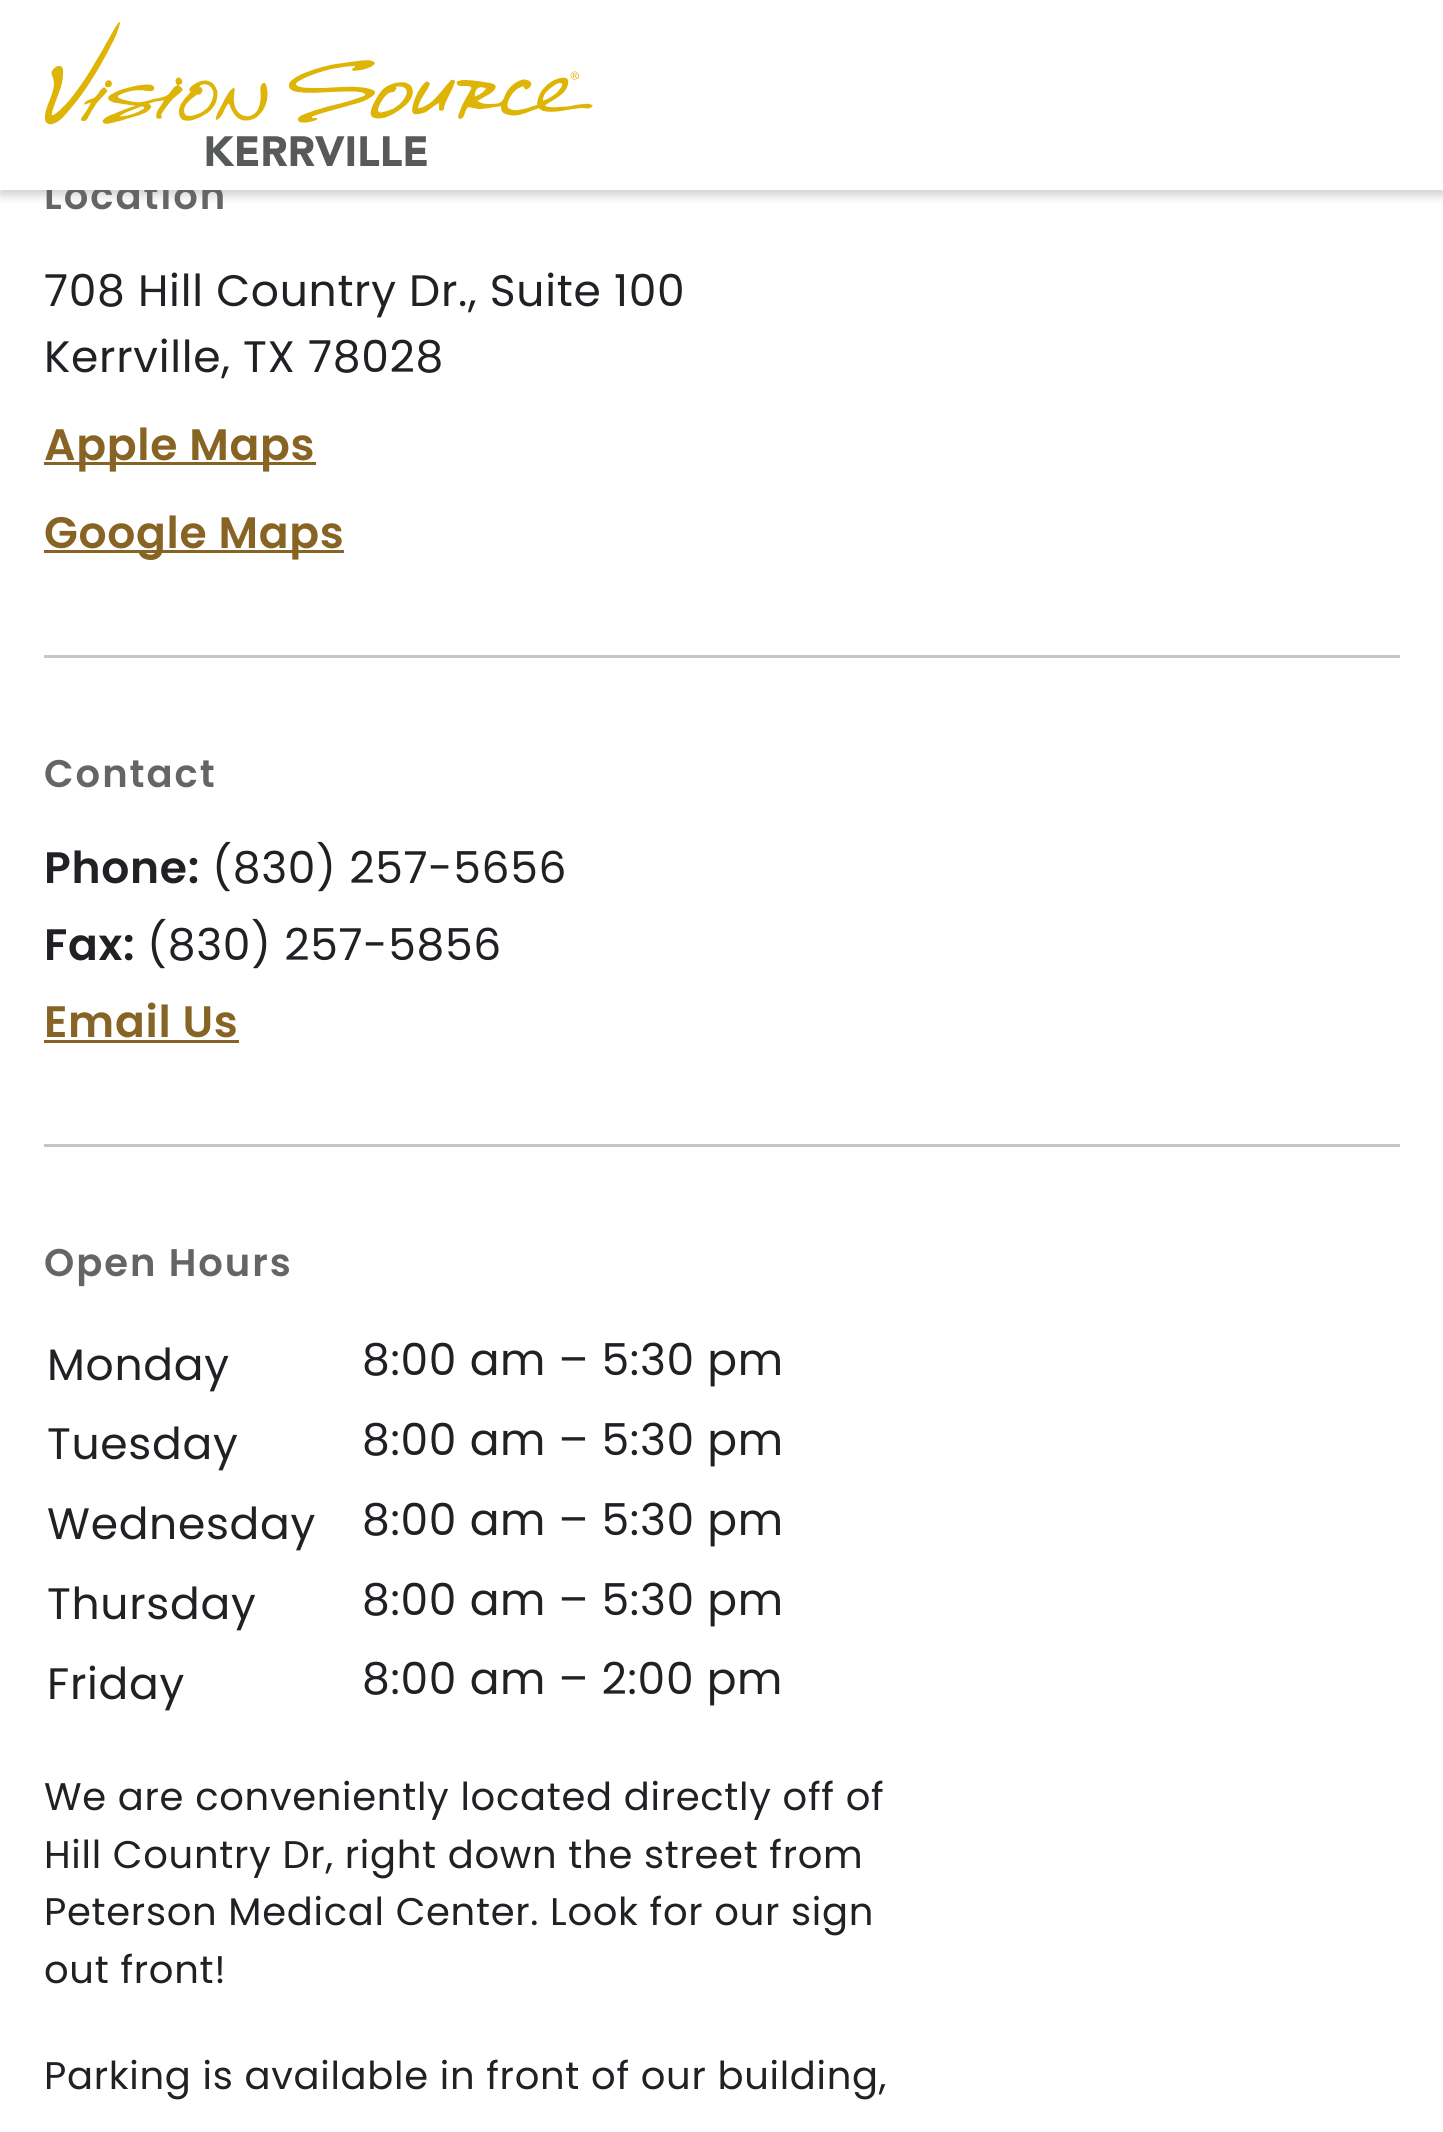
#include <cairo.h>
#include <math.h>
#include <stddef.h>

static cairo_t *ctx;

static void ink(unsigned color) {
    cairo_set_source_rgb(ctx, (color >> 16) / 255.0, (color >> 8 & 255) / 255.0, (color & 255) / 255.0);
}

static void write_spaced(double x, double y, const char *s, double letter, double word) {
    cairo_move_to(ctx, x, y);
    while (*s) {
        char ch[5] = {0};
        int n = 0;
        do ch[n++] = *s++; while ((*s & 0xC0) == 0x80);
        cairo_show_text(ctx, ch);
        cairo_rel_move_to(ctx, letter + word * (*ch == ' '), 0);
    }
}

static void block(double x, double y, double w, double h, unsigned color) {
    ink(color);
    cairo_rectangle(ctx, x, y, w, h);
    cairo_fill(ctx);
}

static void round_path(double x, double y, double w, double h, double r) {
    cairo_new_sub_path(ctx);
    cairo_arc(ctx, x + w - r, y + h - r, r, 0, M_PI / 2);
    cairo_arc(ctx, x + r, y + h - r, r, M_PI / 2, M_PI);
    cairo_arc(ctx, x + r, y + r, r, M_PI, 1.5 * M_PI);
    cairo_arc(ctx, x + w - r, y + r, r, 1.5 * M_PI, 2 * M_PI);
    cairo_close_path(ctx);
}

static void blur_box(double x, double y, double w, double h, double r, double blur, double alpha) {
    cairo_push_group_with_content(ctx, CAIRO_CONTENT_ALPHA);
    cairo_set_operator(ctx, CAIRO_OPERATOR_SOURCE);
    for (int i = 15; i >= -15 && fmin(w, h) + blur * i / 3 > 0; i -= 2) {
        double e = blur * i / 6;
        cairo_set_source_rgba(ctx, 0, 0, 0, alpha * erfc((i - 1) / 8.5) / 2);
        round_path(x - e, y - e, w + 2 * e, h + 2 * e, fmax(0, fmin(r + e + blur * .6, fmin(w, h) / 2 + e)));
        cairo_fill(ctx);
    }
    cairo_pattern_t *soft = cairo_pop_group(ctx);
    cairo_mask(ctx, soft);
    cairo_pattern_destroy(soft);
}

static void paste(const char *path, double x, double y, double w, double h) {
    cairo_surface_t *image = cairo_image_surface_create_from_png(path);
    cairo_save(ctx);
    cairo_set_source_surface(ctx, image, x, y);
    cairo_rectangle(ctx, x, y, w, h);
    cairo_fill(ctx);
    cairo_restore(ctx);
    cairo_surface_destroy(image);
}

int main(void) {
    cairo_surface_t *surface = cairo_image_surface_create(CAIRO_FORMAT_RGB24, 1443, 2132);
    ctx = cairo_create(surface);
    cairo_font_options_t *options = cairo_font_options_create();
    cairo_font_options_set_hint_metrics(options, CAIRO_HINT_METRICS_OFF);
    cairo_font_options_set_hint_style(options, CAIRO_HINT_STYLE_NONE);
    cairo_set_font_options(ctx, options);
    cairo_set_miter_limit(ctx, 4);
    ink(0xffffff);
    cairo_paint(ctx);
    ink(0x000000);
    blur_box(0, 6, 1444, 189, 0, 5.5, 0.2);
    cairo_select_font_face(ctx, "Poppins SemiBold", CAIRO_FONT_SLANT_NORMAL, CAIRO_FONT_WEIGHT_NORMAL);
    cairo_set_font_size(ctx, 38.5);
    ink(0x656565);
    write_spaced(44, 209, "Location", 2, 0);
    block(0, 0, 1443, 190, 0xffffff);
    paste("pic1.png", 45, 22, 548, 144);
    block(44, 655, 1356, 3, 0xc6c6c6);
    cairo_select_font_face(ctx, "Poppins", CAIRO_FONT_SLANT_NORMAL, CAIRO_FONT_WEIGHT_NORMAL);
    cairo_set_font_size(ctx, 44);
    ink(0x202124);
    write_spaced(44, 306, "708 Hill Country Dr., Suite 100", 0.7, 0);
    write_spaced(44, 372, "Kerrville, TX 78028", 0.7, 0);
    block(44, 462, 272, 3, 0x876424);
    cairo_select_font_face(ctx, "Poppins SemiBold", CAIRO_FONT_SLANT_NORMAL, CAIRO_FONT_WEIGHT_NORMAL);
    write_spaced(44, 460, "Apple Maps", 0.7, 0);
    block(44, 550, 300, 3, 0x876424);
    write_spaced(44, 548, "Google Maps", 0.7, 0);
    block(44, 1144, 1356, 3, 0xc6c6c6);
    cairo_set_font_size(ctx, 38.5);
    ink(0x656565);
    write_spaced(44, 787, "Contact", 2, 0);
    cairo_set_font_size(ctx, 44);
    ink(0x202124);
    write_spaced(44, 883, "Phone:", 0.7, 0);
    cairo_select_font_face(ctx, "Poppins", CAIRO_FONT_SLANT_NORMAL, CAIRO_FONT_WEIGHT_NORMAL);
    write_spaced(212, 883, "(830) 257-5656", 0.7, 0);
    cairo_select_font_face(ctx, "Poppins SemiBold", CAIRO_FONT_SLANT_NORMAL, CAIRO_FONT_WEIGHT_NORMAL);
    write_spaced(44, 960, "Fax:", 0.7, 0);
    cairo_select_font_face(ctx, "Poppins", CAIRO_FONT_SLANT_NORMAL, CAIRO_FONT_WEIGHT_NORMAL);
    write_spaced(147, 960, "(830) 257-5856", 0.7, 0);
    cairo_select_font_face(ctx, "Poppins SemiBold", CAIRO_FONT_SLANT_NORMAL, CAIRO_FONT_WEIGHT_NORMAL);
    ink(0x876424);
    write_spaced(44, 1037, "Email Us", 0.7, 0);
    block(44, 1040, 195, 3, 0x876424);
    cairo_set_font_size(ctx, 38.5);
    ink(0x656565);
    write_spaced(44, 1276, "Open Hours", 2, 0);
    cairo_select_font_face(ctx, "Poppins", CAIRO_FONT_SLANT_NORMAL, CAIRO_FONT_WEIGHT_NORMAL);
    cairo_set_font_size(ctx, 44);
    ink(0x202124);
    write_spaced(47, 1380, "Monday", 0.7, 0);
    write_spaced(362, 1375, "8:00 am – 5:30 pm", 0.7, 0);
    write_spaced(47, 1459, "Tuesday", 0.7, 0);
    write_spaced(362, 1455, "8:00 am – 5:30 pm", 0.7, 0);
    write_spaced(47, 1539, "Wednesday", 0.7, 0);
    write_spaced(362, 1535, "8:00 am – 5:30 pm", 0.7, 0);
    write_spaced(47, 1619, "Thursday", 0.7, 0);
    write_spaced(362, 1615, "8:00 am – 5:30 pm", 0.7, 0);
    write_spaced(47, 1699, "Friday", 0.7, 0);
    write_spaced(362, 1694, "8:00 am – 2:00 pm", 0.7, 0);
    cairo_set_font_size(ctx, 38.5);
    write_spaced(44, 1810, "We are conveniently located directly off of", 0.7, 0);
    write_spaced(44, 1868, "Hill Country Dr, right down the street from", 0.7, 0);
    write_spaced(44, 1925, "Peterson Medical Center. Look for our sign", 0.7, 0);
    write_spaced(44, 1983, "out front!", 0.7, 0);
    write_spaced(44, 2089, "Parking is available in front of our building,", 0.7, 0);
    cairo_surface_write_to_png(surface, "screenshot.png");
    cairo_font_options_destroy(options);
    cairo_destroy(ctx);
    cairo_surface_destroy(surface);
    return 0;
}
